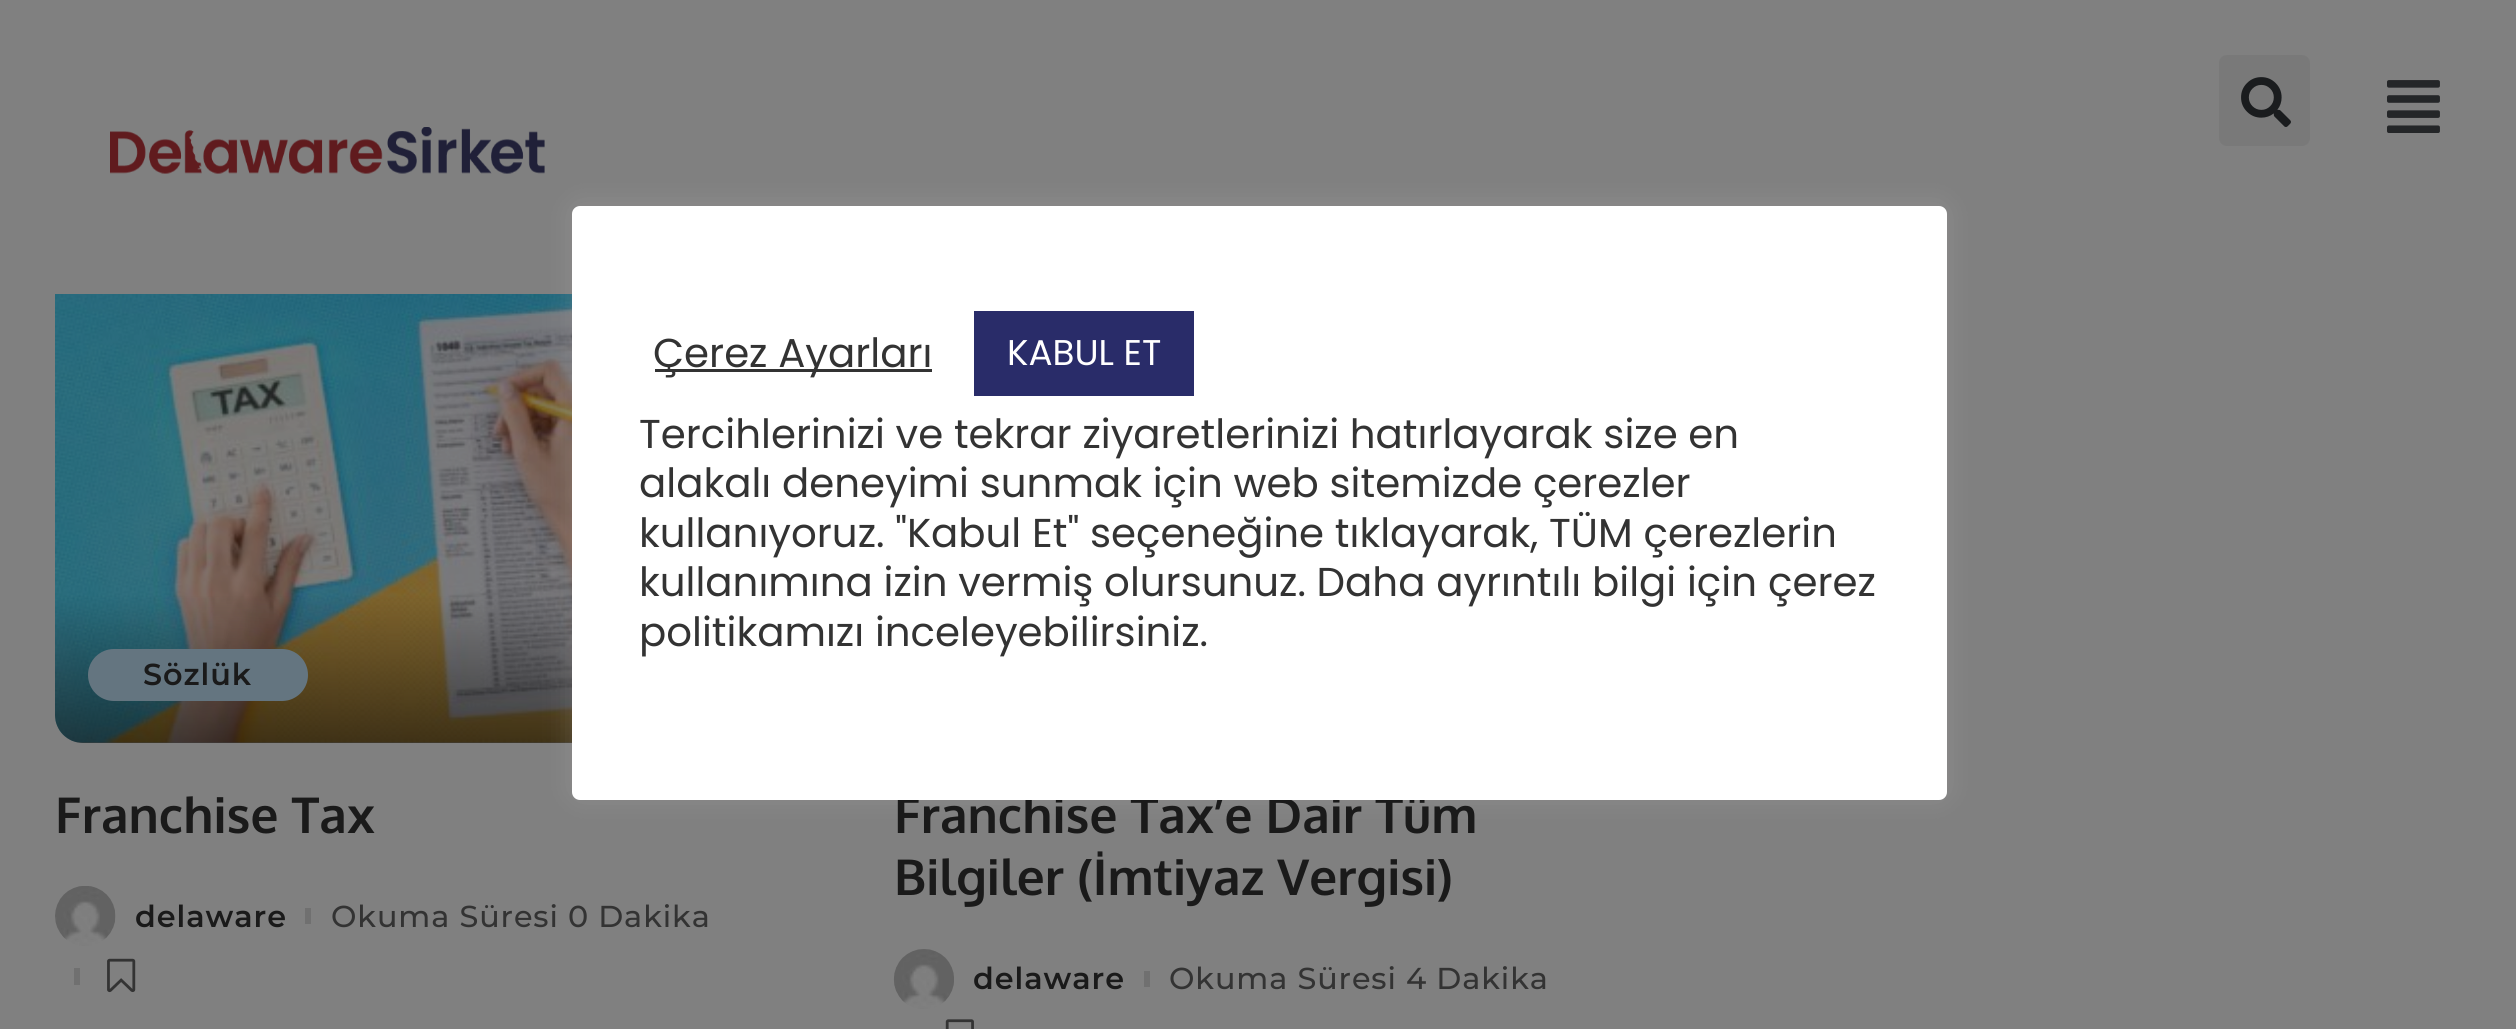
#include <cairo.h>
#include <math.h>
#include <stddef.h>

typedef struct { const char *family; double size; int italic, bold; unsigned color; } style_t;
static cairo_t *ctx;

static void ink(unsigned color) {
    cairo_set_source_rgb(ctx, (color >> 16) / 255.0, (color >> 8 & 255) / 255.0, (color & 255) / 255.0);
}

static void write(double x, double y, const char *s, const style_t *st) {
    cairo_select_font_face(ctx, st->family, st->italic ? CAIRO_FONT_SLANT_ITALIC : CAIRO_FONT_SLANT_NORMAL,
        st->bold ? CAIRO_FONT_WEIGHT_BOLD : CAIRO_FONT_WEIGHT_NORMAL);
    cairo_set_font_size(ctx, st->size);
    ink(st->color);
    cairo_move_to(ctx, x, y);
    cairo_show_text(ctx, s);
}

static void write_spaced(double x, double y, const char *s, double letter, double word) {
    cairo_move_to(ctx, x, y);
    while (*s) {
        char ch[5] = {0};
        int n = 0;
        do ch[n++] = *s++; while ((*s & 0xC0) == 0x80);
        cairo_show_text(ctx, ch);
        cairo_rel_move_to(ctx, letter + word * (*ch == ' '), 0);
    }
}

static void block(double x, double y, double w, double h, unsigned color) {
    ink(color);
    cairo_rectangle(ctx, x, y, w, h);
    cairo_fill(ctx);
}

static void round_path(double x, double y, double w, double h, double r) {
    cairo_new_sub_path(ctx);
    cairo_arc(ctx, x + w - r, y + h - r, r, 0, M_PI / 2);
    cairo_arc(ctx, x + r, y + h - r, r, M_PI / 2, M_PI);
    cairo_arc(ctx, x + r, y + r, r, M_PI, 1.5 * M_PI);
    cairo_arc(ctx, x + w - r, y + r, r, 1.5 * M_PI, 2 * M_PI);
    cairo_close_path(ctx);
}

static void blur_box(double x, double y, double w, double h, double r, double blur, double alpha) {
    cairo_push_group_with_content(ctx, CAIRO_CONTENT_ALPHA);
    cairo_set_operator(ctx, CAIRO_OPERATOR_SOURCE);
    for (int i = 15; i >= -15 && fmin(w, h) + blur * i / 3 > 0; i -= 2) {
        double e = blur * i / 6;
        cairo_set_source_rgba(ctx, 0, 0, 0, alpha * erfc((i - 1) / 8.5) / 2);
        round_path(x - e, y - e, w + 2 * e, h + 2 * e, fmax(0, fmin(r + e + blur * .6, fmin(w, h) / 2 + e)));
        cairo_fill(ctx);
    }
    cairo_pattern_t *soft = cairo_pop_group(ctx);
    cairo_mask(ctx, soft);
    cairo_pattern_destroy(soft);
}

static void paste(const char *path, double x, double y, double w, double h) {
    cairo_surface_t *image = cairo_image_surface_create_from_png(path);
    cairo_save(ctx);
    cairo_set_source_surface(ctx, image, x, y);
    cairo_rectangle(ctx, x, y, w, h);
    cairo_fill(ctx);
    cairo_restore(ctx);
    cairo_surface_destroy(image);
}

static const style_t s1 = {"Oxygen", 49.5, 0, 1, 0x1a1a1a};
static const style_t s2 = {"Poppins", 40.3, 0, 0, 0x333333};
static const style_t s3 = {"Poppins", 35.75, 0, 0, 0xffffff};

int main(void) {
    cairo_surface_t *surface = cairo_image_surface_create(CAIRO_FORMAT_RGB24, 2516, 1029);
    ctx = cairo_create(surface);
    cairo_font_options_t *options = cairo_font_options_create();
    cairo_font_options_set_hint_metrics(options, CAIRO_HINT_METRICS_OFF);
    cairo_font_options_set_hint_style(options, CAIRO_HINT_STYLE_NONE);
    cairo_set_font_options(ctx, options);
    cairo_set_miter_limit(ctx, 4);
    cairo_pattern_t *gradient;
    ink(0x808080);
    cairo_paint(ctx);
    paste("pic1.png", 110, 127, 435, 47);
    ink(0x797979);
    round_path(2219, 55, 91, 91, 8);
    cairo_fill(ctx);
    paste("pic2.png", 2241, 77, 50, 50);
    paste("pic3.png", 2387, 80, 53, 53);
    paste("pic4.png", 55, 294, 517, 449);
    gradient = cairo_pattern_create_linear(419, 594, 419, 743);
    cairo_pattern_add_color_stop_rgba(gradient, 0, 0, 0, 0, 0);
    cairo_pattern_add_color_stop_rgba(gradient, 1, 0, 0, 0, 0.5);
    cairo_set_source(ctx, gradient);
    cairo_pattern_destroy(gradient);
    cairo_new_path(ctx);
    cairo_move_to(ctx, 55, 594);
    cairo_line_to(ctx, 784, 594);
    cairo_line_to(ctx, 784, 715);
    cairo_curve_to(ctx, 784, 730.5, 771.5, 743, 756, 743);
    cairo_line_to(ctx, 83, 743);
    cairo_curve_to(ctx, 67.5, 743, 55, 730.5, 55, 715);
    cairo_close_path(ctx);
    cairo_fill(ctx);
    ink(0xacabab);
    blur_box(572, 204, 1375, 594, 8, 14, 0.3);
    write(894, 833, "Franchise Tax’e Dair Tüm", &s1);
    ink(0xffffff);
    round_path(572, 206, 1375, 594, 8);
    cairo_fill(ctx);
    block(655, 369, 277, 3, 0x333333);
    write(653, 367, "Çerez Ayarları", &s2);
    block(974, 311, 220, 85, 0x292c69);
    write(1007, 365, "KABUL ET", &s3);
    write(639, 448, "Tercihlerinizi ve tekrar ziyaretlerinizi hatırlayarak size en", &s2);
    write(639, 497, "alakalı deneyimi sunmak için web sitemizde çerezler", &s2);
    write(639, 547, "kullanıyoruz. \"Kabul Et\" seçeneğine tıklayarak, TÜM çerezlerin", &s2);
    write(639, 596, "kullanımına izin vermiş olursunuz. Daha ayrıntılı bilgi için", &s2);
    write(1768, 596, "çerez", &s2);
    write(639, 646, "politikamızı inceleyebilirsiniz.", &s2);
    ink(0x647580);
    round_path(88, 649, 220, 52, 26);
    cairo_fill(ctx);
    cairo_select_font_face(ctx, "Montserrat SemiBold", CAIRO_FONT_SLANT_NORMAL, CAIRO_FONT_WEIGHT_NORMAL);
    cairo_set_font_size(ctx, 30.25);
    ink(0x1a1a1a);
    write_spaced(143, 685, "Sözlük", 0.95, 0);
    write(55, 833, "Franchise Tax", &s1);
    paste("pic5.png", 55, 886, 61, 60);
    cairo_select_font_face(ctx, "Montserrat SemiBold", CAIRO_FONT_SLANT_NORMAL, CAIRO_FONT_WEIGHT_NORMAL);
    cairo_set_font_size(ctx, 30.25);
    write_spaced(135, 927, "delaware", 0.95, 0);
    block(305, 908, 6, 16, 0x707070);
    cairo_select_font_face(ctx, "Montserrat Medium", CAIRO_FONT_SLANT_NORMAL, CAIRO_FONT_WEIGHT_NORMAL);
    ink(0x333333);
    write_spaced(331, 927, "Okuma Süresi 0 Dakika", 0.95, 0);
    block(74, 968, 6, 17, 0x707070);
    paste("pic6.png", 107, 958, 29, 35);
    write(894, 895, "Bilgiler (İmtiyaz Vergisi)", &s1);
    paste("pic7.png", 893, 949, 61, 60);
    cairo_select_font_face(ctx, "Montserrat SemiBold", CAIRO_FONT_SLANT_NORMAL, CAIRO_FONT_WEIGHT_NORMAL);
    cairo_set_font_size(ctx, 30.25);
    write_spaced(973, 989, "delaware", 0.95, 0);
    block(1144, 971, 6, 16, 0x707070);
    cairo_select_font_face(ctx, "Montserrat Medium", CAIRO_FONT_SLANT_NORMAL, CAIRO_FONT_WEIGHT_NORMAL);
    ink(0x333333);
    write_spaced(1169, 989, "Okuma Süresi 4 Dakika", 0.95, 0);
    paste("pic8.png", 945, 1019, 29, 10);
    cairo_surface_write_to_png(surface, "screenshot.png");
    cairo_font_options_destroy(options);
    cairo_destroy(ctx);
    cairo_surface_destroy(surface);
    return 0;
}
